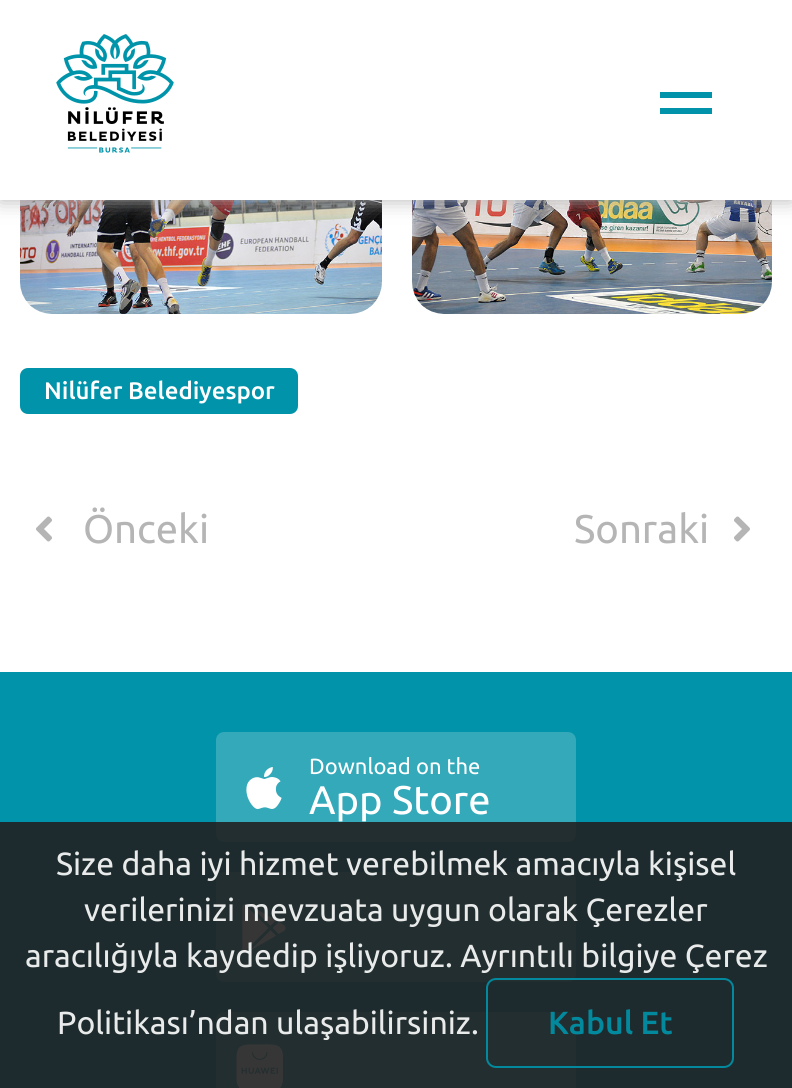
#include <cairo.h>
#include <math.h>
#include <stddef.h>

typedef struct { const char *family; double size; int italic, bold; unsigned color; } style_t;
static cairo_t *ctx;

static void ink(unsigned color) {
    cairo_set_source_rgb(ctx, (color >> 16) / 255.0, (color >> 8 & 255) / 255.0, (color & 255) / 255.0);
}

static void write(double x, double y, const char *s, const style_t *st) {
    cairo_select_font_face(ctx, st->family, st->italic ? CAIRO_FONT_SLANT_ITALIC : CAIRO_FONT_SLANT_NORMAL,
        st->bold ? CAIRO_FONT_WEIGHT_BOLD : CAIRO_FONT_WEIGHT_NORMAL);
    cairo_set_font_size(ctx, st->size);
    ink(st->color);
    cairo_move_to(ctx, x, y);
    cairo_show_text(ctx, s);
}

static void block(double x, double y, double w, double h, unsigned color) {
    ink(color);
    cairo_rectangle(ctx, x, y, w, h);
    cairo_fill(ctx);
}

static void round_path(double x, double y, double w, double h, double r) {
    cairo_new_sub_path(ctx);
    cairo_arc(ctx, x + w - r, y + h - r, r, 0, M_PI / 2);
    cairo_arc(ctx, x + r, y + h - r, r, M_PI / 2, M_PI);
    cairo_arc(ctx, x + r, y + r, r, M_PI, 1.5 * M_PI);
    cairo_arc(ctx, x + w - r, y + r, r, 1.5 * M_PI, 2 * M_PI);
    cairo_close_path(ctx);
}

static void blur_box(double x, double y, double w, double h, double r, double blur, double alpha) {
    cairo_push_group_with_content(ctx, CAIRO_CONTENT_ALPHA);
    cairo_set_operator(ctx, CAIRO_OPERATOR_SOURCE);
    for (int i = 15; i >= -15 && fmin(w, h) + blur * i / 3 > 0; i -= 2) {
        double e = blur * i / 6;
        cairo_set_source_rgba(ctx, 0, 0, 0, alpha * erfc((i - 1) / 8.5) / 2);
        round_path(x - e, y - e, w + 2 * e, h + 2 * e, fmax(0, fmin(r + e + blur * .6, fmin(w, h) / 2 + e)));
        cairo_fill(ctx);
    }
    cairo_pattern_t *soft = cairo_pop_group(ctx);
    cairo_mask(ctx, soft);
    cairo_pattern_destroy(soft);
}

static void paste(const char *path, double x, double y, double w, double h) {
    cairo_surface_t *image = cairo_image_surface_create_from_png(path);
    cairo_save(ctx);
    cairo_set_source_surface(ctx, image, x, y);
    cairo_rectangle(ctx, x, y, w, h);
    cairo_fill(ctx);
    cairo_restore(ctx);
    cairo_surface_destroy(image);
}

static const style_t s1 = {"Ubuntu Medium", 24, 0, 0, 0xffffff};
static const style_t s2 = {"Ubuntu", 40, 0, 0, 0xb5b5b5};
static const style_t s3 = {"Ubuntu", 22, 0, 0, 0xffffff};
static const style_t s4 = {"Ubuntu", 40, 0, 0, 0xffffff};
static const style_t s5 = {"Ubuntu", 32, 0, 0, 0xe9eaea};
static const style_t s6 = {"Ubuntu Medium", 32, 0, 0, 0x03899d};

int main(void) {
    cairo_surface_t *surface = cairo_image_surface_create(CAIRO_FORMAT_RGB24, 792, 1088);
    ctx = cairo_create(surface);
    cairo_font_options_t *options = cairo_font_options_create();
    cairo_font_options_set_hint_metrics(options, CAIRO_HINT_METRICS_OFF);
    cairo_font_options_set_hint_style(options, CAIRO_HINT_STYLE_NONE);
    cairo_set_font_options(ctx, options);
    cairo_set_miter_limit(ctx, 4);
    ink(0xffffff);
    cairo_paint(ctx);
    paste("pic2.png", 20, 200, 362, 114);
    paste("pic3.png", 412, 200, 360, 114);
    ink(0xb6b6b6);
    blur_box(0, 0, 792, 200, 0, 10, 1);
    block(0, 0, 792, 200, 0xffffff);
    paste("pic1.png", 56, 34, 118, 119);
    block(660, 92, 52, 6, 0x0093a9);
    block(660, 108, 52, 6, 0x0093a9);
    round_path(20, 368, 278, 46, 8);
    cairo_fill(ctx);
    write(44, 399, "Nilüfer Belediyespor", &s1);
    paste("pic4.png", 36, 516, 16, 26);
    write(83, 543, "Önceki", &s2);
    write(574, 543, "Sonraki", &s2);
    paste("pic5.png", 734, 516, 16, 26);
    block(0, 672, 792, 416, 0x0093a9);
    ink(0x33a9ba);
    round_path(216, 732, 360, 110, 8);
    cairo_fill(ctx);
    paste("pic6.png", 246, 767, 36, 42);
    write(309, 774, "Download on the", &s3);
    write(309, 814, "App Store", &s4);
    ink(0x33a9ba);
    round_path(216, 872, 360, 110, 8);
    cairo_fill(ctx);
    paste("pic7.png", 242, 904, 44, 48);
    round_path(216, 1012, 360, 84, 8);
    cairo_fill(ctx);
    paste("pic8.png", 236, 1044, 48, 44);
    cairo_set_source_rgba(ctx, 0.129, 0.129, 0.129, 0.9);
    cairo_rectangle(ctx, 0, 822, 792, 266);
    cairo_fill(ctx);
    write(56, 875, "Size daha iyi hizmet verebilmek amacıyla kişisel", &s5);
    write(84, 921, "verilerinizi mevzuata uygun olarak Çerezler", &s5);
    write(25, 967, "aracılığıyla kaydedip işliyoruz. Ayrıntılı bilgiye Çerez", &s5);
    write(57, 1034, "Politikası’ndan ulaşabilirsiniz.", &s5);
    round_path(487, 979, 246, 88, 9);
    cairo_set_source_rgba(ctx, 0, 0.576, 0.663, 0.9);
    cairo_stroke(ctx);
    write(548, 1034, "Kabul Et", &s6);
    cairo_surface_write_to_png(surface, "screenshot.png");
    cairo_font_options_destroy(options);
    cairo_destroy(ctx);
    cairo_surface_destroy(surface);
    return 0;
}
